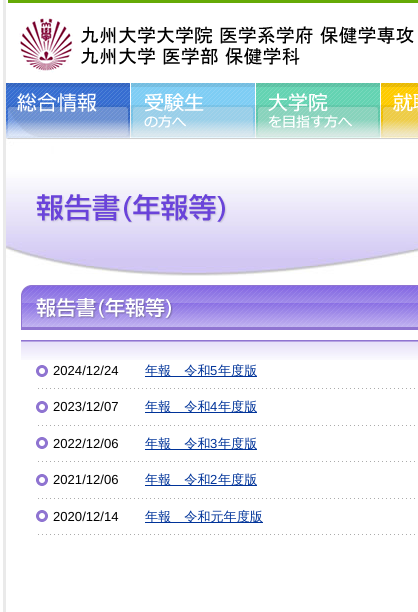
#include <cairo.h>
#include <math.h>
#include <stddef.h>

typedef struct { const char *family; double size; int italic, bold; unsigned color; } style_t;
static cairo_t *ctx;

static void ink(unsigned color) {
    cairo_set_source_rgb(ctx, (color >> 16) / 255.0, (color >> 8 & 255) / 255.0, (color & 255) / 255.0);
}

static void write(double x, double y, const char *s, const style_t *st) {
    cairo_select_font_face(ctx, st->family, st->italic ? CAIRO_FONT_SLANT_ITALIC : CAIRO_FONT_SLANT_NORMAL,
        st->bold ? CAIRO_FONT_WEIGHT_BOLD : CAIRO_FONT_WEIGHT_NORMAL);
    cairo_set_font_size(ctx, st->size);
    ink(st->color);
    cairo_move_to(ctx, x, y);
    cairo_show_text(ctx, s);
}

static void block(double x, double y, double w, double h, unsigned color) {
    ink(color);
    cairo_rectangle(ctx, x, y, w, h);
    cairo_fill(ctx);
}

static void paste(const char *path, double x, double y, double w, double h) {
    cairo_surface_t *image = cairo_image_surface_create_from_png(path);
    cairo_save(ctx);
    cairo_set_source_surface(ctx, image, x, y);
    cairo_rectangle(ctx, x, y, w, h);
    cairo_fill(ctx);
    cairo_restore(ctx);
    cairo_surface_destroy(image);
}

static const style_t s1 = {"Liberation Sans", 13.1, 0, 0, 0x000000};
static const style_t s2 = {"WenQuanYi Zen Hei Medium", 13.1, 0, 0, 0x003399};
static const style_t s3 = {"Liberation Sans", 13.1, 0, 0, 0x003399};

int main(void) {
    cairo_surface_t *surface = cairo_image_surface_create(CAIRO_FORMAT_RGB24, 418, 612);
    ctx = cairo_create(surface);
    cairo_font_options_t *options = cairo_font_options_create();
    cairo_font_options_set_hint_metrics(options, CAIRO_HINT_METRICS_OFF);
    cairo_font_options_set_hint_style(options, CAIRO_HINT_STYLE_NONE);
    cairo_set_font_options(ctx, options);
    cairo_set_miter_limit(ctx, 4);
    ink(0xffffff);
    cairo_paint(ctx);
    block(3, 0, 3, 612, 0xeaeaea);
    block(8, 0, 410, 3, 0x65aa06);
    paste("pic1.png", 18, 17, 396, 56);
    paste("pic2.png", 6, 83, 124, 55);
    paste("pic3.png", 130, 83, 125, 55);
    paste("pic4.png", 255, 83, 125, 55);
    paste("pic5.png", 380, 83, 38, 55);
    paste("pic6.png", 6, 138, 412, 138);
    paste("pic7.png", 36, 194, 191, 29);
    paste("pic8.png", 21, 285, 397, 45);
    paste("pic9.png", 21, 340, 397, 20);
    paste("pic10.png", 36, 365, 12, 12);
    write(53, 375, "2024/12/24", &s1);
    paste("pic11.png", 38, 388, 377, 1);
    block(145, 376, 112, 1, 0x003399);
    write(145, 375, "年報　令和", &s2);
    write(210, 375, "5", &s3);
    write(218, 375, "年度版", &s2);
    paste("pic10.png", 36, 401, 12, 12);
    write(53, 411, "2023/12/07", &s1);
    paste("pic11.png", 38, 425, 377, 1);
    block(145, 412, 112, 1, 0x003399);
    write(145, 411, "年報　令和", &s2);
    write(210, 411, "4", &s3);
    write(218, 411, "年度版", &s2);
    paste("pic10.png", 36, 437, 12, 12);
    write(53, 448, "2022/12/06", &s1);
    paste("pic11.png", 38, 461, 377, 1);
    block(145, 449, 112, 1, 0x003399);
    write(145, 448, "年報　令和", &s2);
    write(210, 448, "3", &s3);
    write(218, 448, "年度版", &s2);
    paste("pic10.png", 36, 474, 12, 12);
    write(53, 484, "2021/12/06", &s1);
    paste("pic11.png", 38, 498, 377, 1);
    block(145, 485, 112, 1, 0x003399);
    write(145, 484, "年報　令和", &s2);
    write(210, 484, "2", &s3);
    write(218, 484, "年度版", &s2);
    paste("pic10.png", 36, 510, 12, 12);
    write(53, 521, "2020/12/14", &s1);
    paste("pic11.png", 38, 534, 377, 1);
    block(145, 522, 118, 1, 0x003399);
    write(145, 521, "年報　令和元年度版", &s2);
    cairo_surface_write_to_png(surface, "screenshot.png");
    cairo_font_options_destroy(options);
    cairo_destroy(ctx);
    cairo_surface_destroy(surface);
    return 0;
}
